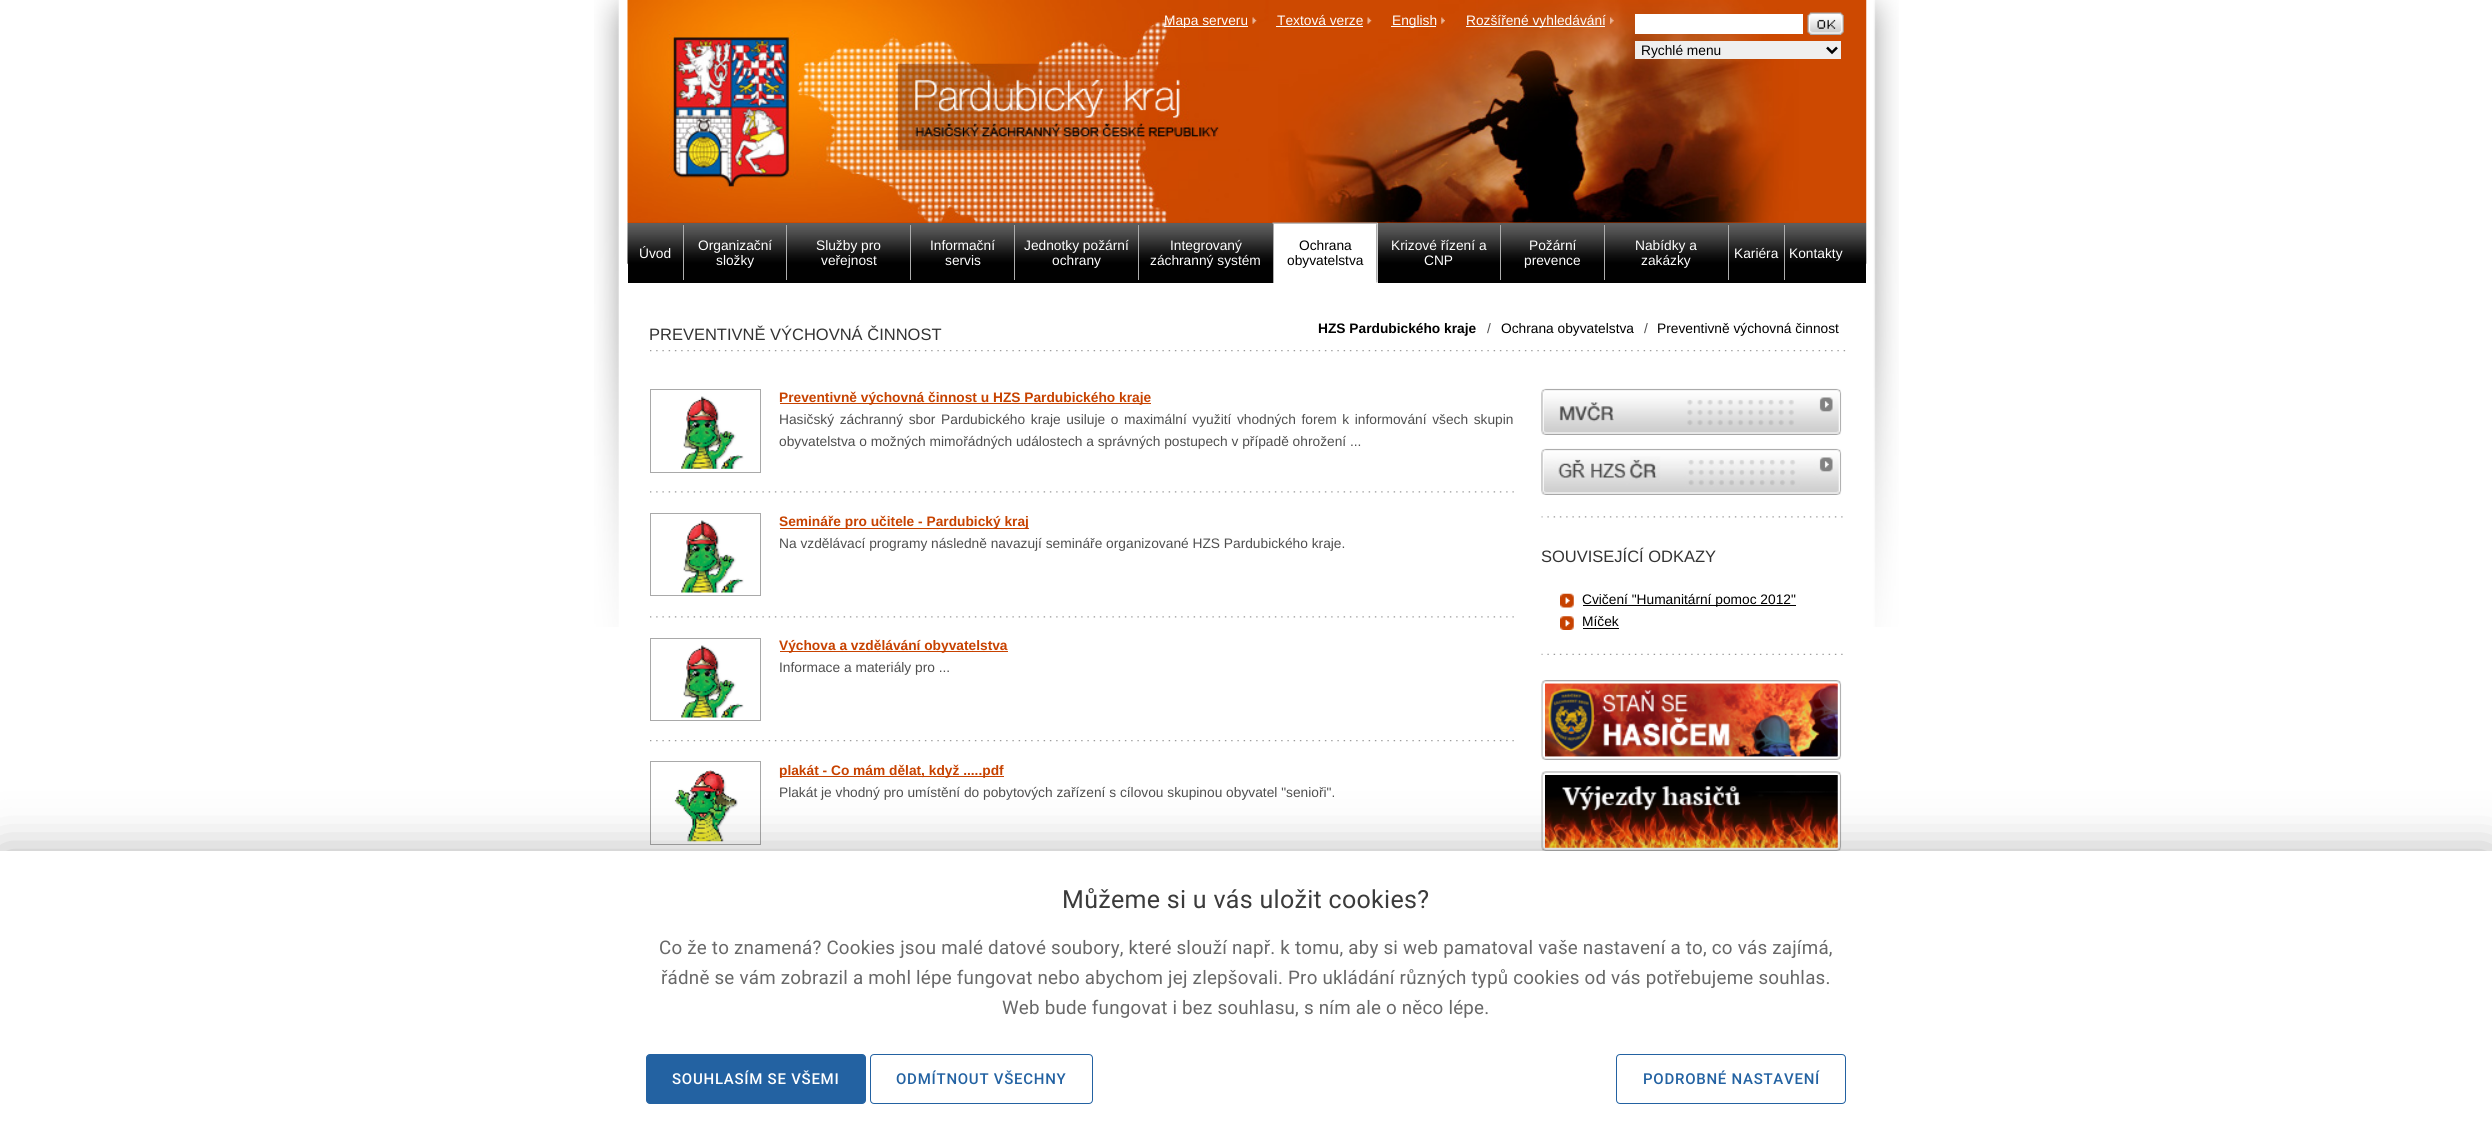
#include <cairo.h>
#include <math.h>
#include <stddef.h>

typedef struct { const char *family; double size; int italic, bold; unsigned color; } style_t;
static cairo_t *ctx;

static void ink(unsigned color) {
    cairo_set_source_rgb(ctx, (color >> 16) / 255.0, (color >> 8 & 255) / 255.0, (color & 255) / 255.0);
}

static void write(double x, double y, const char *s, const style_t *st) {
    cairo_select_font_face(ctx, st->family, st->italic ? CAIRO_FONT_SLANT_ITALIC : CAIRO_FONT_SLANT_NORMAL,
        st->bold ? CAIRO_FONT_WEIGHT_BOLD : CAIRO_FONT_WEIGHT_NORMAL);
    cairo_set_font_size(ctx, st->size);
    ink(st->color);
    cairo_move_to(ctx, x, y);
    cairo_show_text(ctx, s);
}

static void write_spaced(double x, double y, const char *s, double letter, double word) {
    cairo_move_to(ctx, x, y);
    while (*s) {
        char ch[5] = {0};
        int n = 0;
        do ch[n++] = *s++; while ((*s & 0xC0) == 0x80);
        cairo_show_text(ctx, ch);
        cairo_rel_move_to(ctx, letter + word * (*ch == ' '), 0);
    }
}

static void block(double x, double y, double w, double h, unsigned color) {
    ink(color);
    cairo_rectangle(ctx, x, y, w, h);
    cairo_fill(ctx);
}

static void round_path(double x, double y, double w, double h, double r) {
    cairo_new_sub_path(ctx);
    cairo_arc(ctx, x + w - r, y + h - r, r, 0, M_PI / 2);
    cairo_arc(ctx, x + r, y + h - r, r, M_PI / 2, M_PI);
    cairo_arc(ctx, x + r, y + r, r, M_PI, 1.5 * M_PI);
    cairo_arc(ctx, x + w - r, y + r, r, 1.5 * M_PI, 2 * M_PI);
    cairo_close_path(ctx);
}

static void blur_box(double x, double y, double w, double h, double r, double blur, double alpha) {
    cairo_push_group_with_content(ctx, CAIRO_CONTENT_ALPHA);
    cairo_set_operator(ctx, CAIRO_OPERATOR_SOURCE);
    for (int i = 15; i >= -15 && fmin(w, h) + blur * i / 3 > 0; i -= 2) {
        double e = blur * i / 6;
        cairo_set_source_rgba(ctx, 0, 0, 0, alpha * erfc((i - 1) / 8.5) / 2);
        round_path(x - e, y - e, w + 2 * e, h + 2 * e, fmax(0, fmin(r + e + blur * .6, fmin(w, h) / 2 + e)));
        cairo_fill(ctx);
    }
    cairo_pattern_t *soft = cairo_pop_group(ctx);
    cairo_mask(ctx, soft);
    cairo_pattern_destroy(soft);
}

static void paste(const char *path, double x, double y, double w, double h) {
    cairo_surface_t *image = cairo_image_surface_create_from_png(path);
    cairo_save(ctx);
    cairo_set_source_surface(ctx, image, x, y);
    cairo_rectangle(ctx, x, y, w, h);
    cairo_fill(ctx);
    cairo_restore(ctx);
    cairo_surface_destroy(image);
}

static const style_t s1 = {"Liberation Sans", 13.75, 0, 0, 0xffffff};
static const style_t s2 = {"Liberation Sans", 13.75, 0, 0, 0x000000};
static const style_t s3 = {"Liberation Sans", 16.5, 0, 0, 0x333333};
static const style_t s4 = {"Liberation Sans", 13.75, 0, 1, 0x000000};
static const style_t s5 = {"Liberation Sans", 13.75, 0, 0, 0x4f4f4f};
static const style_t s6 = {"Liberation Sans", 13.75, 0, 1, 0xc74200};

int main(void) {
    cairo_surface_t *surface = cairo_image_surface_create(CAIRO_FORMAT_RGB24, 2492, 1128);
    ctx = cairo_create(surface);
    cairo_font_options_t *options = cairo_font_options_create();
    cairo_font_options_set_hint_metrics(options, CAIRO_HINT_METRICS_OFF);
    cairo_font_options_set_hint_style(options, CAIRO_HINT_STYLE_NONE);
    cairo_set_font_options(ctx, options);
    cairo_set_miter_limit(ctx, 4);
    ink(0xffffff);
    cairo_paint(ctx);
    paste("pic1.png", 594, 0, 1305, 627);
    block(628, 263, 1238, 20, 0x010101);
    paste("pic8.png", 627, 222, 1240, 42);
    block(628, 222, 1238, 1, 0xc74200);
    paste("pic2.png", 627, 0, 1240, 223);
    block(1164, 26, 84, 1, 0xffffff);
    write(1164, 25, "Mapa serveru", &s1);
    paste("pic3.png", 1252, 17, 5, 7);
    write(1277, 25, "Textová verze", &s1);
    block(1276, 26, 87, 1, 0xffffff);
    paste("pic4.png", 1367, 17, 5, 7);
    block(1391, 26, 45, 1, 0xffffff);
    write(1392, 25, "English", &s1);
    paste("pic5.png", 1441, 17, 4, 7);
    block(1466, 26, 139, 1, 0xffffff);
    write(1466, 25, "Rozšířené vyhledávání", &s1);
    paste("pic6.png", 1610, 17, 4, 7);
    block(1635, 14, 168, 20, 0xffffff);
    paste("pic7.png", 1807, 12, 37, 23);
    block(1635, 41, 206, 18, 0xefefef);
    cairo_new_path(ctx);
    cairo_move_to(ctx, 1827, 47.5);
    cairo_line_to(ctx, 1832, 52.5);
    cairo_line_to(ctx, 1837, 47.5);
    ink(0x000000);
    cairo_set_line_width(ctx, 2.5);
    cairo_stroke(ctx);
    write(1641, 55, "Rychlé menu", &s2);
    write(639, 258, "Úvod", &s1);
    block(683, 225, 1, 55, 0xadadad);
    write(698, 250, "Organizační", &s1);
    write(716, 265, "složky", &s1);
    block(786, 225, 1, 55, 0xadadad);
    write(816, 250, "Služby pro", &s1);
    write(821, 265, "veřejnost", &s1);
    block(910, 225, 1, 55, 0xadadad);
    write(930, 250, "Informační", &s1);
    write(945, 265, "servis", &s1);
    block(1014, 225, 1, 55, 0xadadad);
    write(1024, 250, "Jednotky požární", &s1);
    write(1052, 265, "ochrany", &s1);
    block(1138, 225, 1, 55, 0xadadad);
    write(1170, 250, "Integrovaný", &s1);
    write(1150, 265, "záchranný systém", &s1);
    block(1274, 223, 104, 60, 0xffffff);
    paste("pic9.png", 1272, 222, 106, 61);
    block(1273, 223, 1, 60, 0xadadad);
    write(1299, 250, "Ochrana", &s2);
    write(1287, 265, "obyvatelstva", &s2);
    block(1376, 225, 1, 55, 0xadadad);
    write(1391, 250, "Krizové řízení a", &s1);
    write(1424, 265, "CNP", &s1);
    block(1500, 225, 1, 55, 0xadadad);
    write(1529, 250, "Požární", &s1);
    write(1524, 265, "prevence", &s1);
    block(1604, 225, 1, 55, 0xadadad);
    write(1635, 250, "Nabídky a", &s1);
    write(1641, 265, "zakázky", &s1);
    block(1728, 225, 1, 55, 0xadadad);
    write(1734, 258, "Kariéra", &s1);
    block(1784, 225, 1, 55, 0xadadad);
    write(1789, 258, "Kontakty", &s1);
    paste("pic10.png", 650, 350, 1196, 2);
    write(649, 340, "PREVENTIVNĚ VÝCHOVNÁ ČINNOST", &s3);
    write(1318, 333, "HZS Pardubického kraje", &s4);
    write(1487, 333, "/", &s5);
    write(1501, 333, "Ochrana obyvatelstva", &s2);
    write(1644, 333, "/", &s5);
    write(1657, 333, "Preventivně výchovná činnost", &s2);
    paste("pic11.png", 650, 491, 864, 2);
    cairo_rectangle(ctx, 650.5, 389.5, 110, 83);
    ink(0xa9a9a9);
    cairo_set_line_width(ctx, 1);
    cairo_stroke(ctx);
    paste("pic12.png", 681, 396, 63, 73);
    block(780, 403, 371, 1, 0xc74200);
    write(779, 402, "Preventivně výchovná činnost u HZS Pardubického kraje", &s6);
    cairo_select_font_face(ctx, "Liberation Sans", CAIRO_FONT_SLANT_NORMAL, CAIRO_FONT_WEIGHT_NORMAL);
    ink(0x4f4f4f);
    write_spaced(779, 424, "Hasičský záchranný sbor Pardubického kraje usiluje o maximální využití vhodných forem k informování všech skupin", 0, 1.8);
    write(779, 446, "obyvatelstva o možných mimořádných událostech a správných postupech v případě ohrožení ...", &s5);
    paste("pic11.png", 650, 616, 864, 2);
    cairo_rectangle(ctx, 650.5, 513.5, 110, 82);
    ink(0xa9a9a9);
    cairo_stroke(ctx);
    paste("pic13.png", 681, 520, 63, 73);
    block(780, 528, 249, 1, 0xc74200);
    write(779, 526, "Semináře pro učitele - Pardubický kraj", &s6);
    write(779, 548, "Na vzdělávací programy následně navazují semináře organizované HZS Pardubického kraje.", &s5);
    paste("pic14.png", 650, 740, 864, 2);
    cairo_rectangle(ctx, 650.5, 638.5, 110, 82);
    ink(0xa9a9a9);
    cairo_stroke(ctx);
    paste("pic13.png", 681, 645, 63, 73);
    block(780, 651, 228, 1, 0xc74200);
    write(779, 650, "Výchova a vzdělávání obyvatelstva", &s6);
    write(779, 672, "Informace a materiály pro ...", &s5);
    cairo_rectangle(ctx, 650.5, 761.5, 110, 83);
    ink(0xa9a9a9);
    cairo_stroke(ctx);
    paste("pic15.png", 674, 770, 64, 72);
    block(780, 776, 224, 1, 0xc74200);
    write(779, 775, "plakát - Co mám dělat, když .....pdf", &s6);
    write(779, 797, "Plakát je vhodný pro umístění do pobytových zařízení s cílovou skupinou obyvatel \"senioři\".", &s5);
    paste("pic16.png", 1541, 516, 302, 2);
    paste("pic17.png", 1541, 388, 301, 47);
    paste("pic18.png", 1541, 448, 301, 47);
    write(1541, 562, "SOUVISEJÍCÍ ODKAZY", &s3);
    paste("pic19.png", 1541, 653, 302, 2);
    paste("pic20.png", 1560, 593, 14, 15);
    block(1583, 605, 213, 1, 0x000000);
    write(1582, 604, "Cvičení \"Humanitární pomoc 2012\"", &s2);
    paste("pic21.png", 1560, 616, 14, 14);
    write(1582, 626, "Míček", &s2);
    block(1583, 628, 36, 1, 0x000000);
    paste("pic22.png", 1541, 680, 301, 80);
    paste("pic23.png", 1545, 683, 293, 74);
    paste("pic24.png", 1541, 771, 301, 80);
    paste("pic25.png", 1545, 775, 293, 73);
    ink(0x3b3b3b);
    blur_box(0, 853, 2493, 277, 0, 25, 0.4);
    block(0, 851, 2492, 277, 0xffffff);
    cairo_select_font_face(ctx, "Roboto", CAIRO_FONT_SLANT_NORMAL, CAIRO_FONT_WEIGHT_NORMAL);
    cairo_set_font_size(ctx, 25);
    ink(0x3b3b3b);
    write_spaced(1062, 908, "Můžeme si u vás uložit cookies?", 0.3, 0);
    cairo_set_font_size(ctx, 18.75);
    ink(0x686868);
    write_spaced(659, 954, "Co že to znamená? Cookies jsou malé datové soubory, které slouží např. k tomu, aby si web pamatoval vaše nastavení a to, co vás zajímá,", 0.23, 0);
    write_spaced(661, 984, "řádně se vám zobrazil a mohl lépe fungovat nebo abychom jej zlepšovali. Pro ukládání různých typů cookies od vás potřebujeme souhlas.", 0.23, 0);
    write_spaced(1002, 1014, "Web bude fungovat i bez souhlasu, s ním ale o něco lépe.", 0.23, 0);
    ink(0x2362a2);
    round_path(646.5, 1054.5, 219, 49, 3.5);
    cairo_fill_preserve(ctx);
    cairo_stroke(ctx);
    cairo_select_font_face(ctx, "Roboto Medium", CAIRO_FONT_SLANT_NORMAL, CAIRO_FONT_WEIGHT_NORMAL);
    cairo_set_font_size(ctx, 15);
    ink(0xffffff);
    write_spaced(672, 1084, "SOUHLASÍM SE VŠEMI", 0.75, 0);
    round_path(870.5, 1054.5, 222, 49, 3.5);
    ink(0x2362a2);
    cairo_stroke(ctx);
    write_spaced(896, 1084, "ODMÍTNOUT VŠECHNY", 0.75, 0);
    round_path(1616.5, 1054.5, 229, 49, 3.5);
    cairo_stroke(ctx);
    write_spaced(1643, 1084, "PODROBNÉ NASTAVENÍ", 0.75, 0);
    cairo_surface_write_to_png(surface, "screenshot.png");
    cairo_font_options_destroy(options);
    cairo_destroy(ctx);
    cairo_surface_destroy(surface);
    return 0;
}
